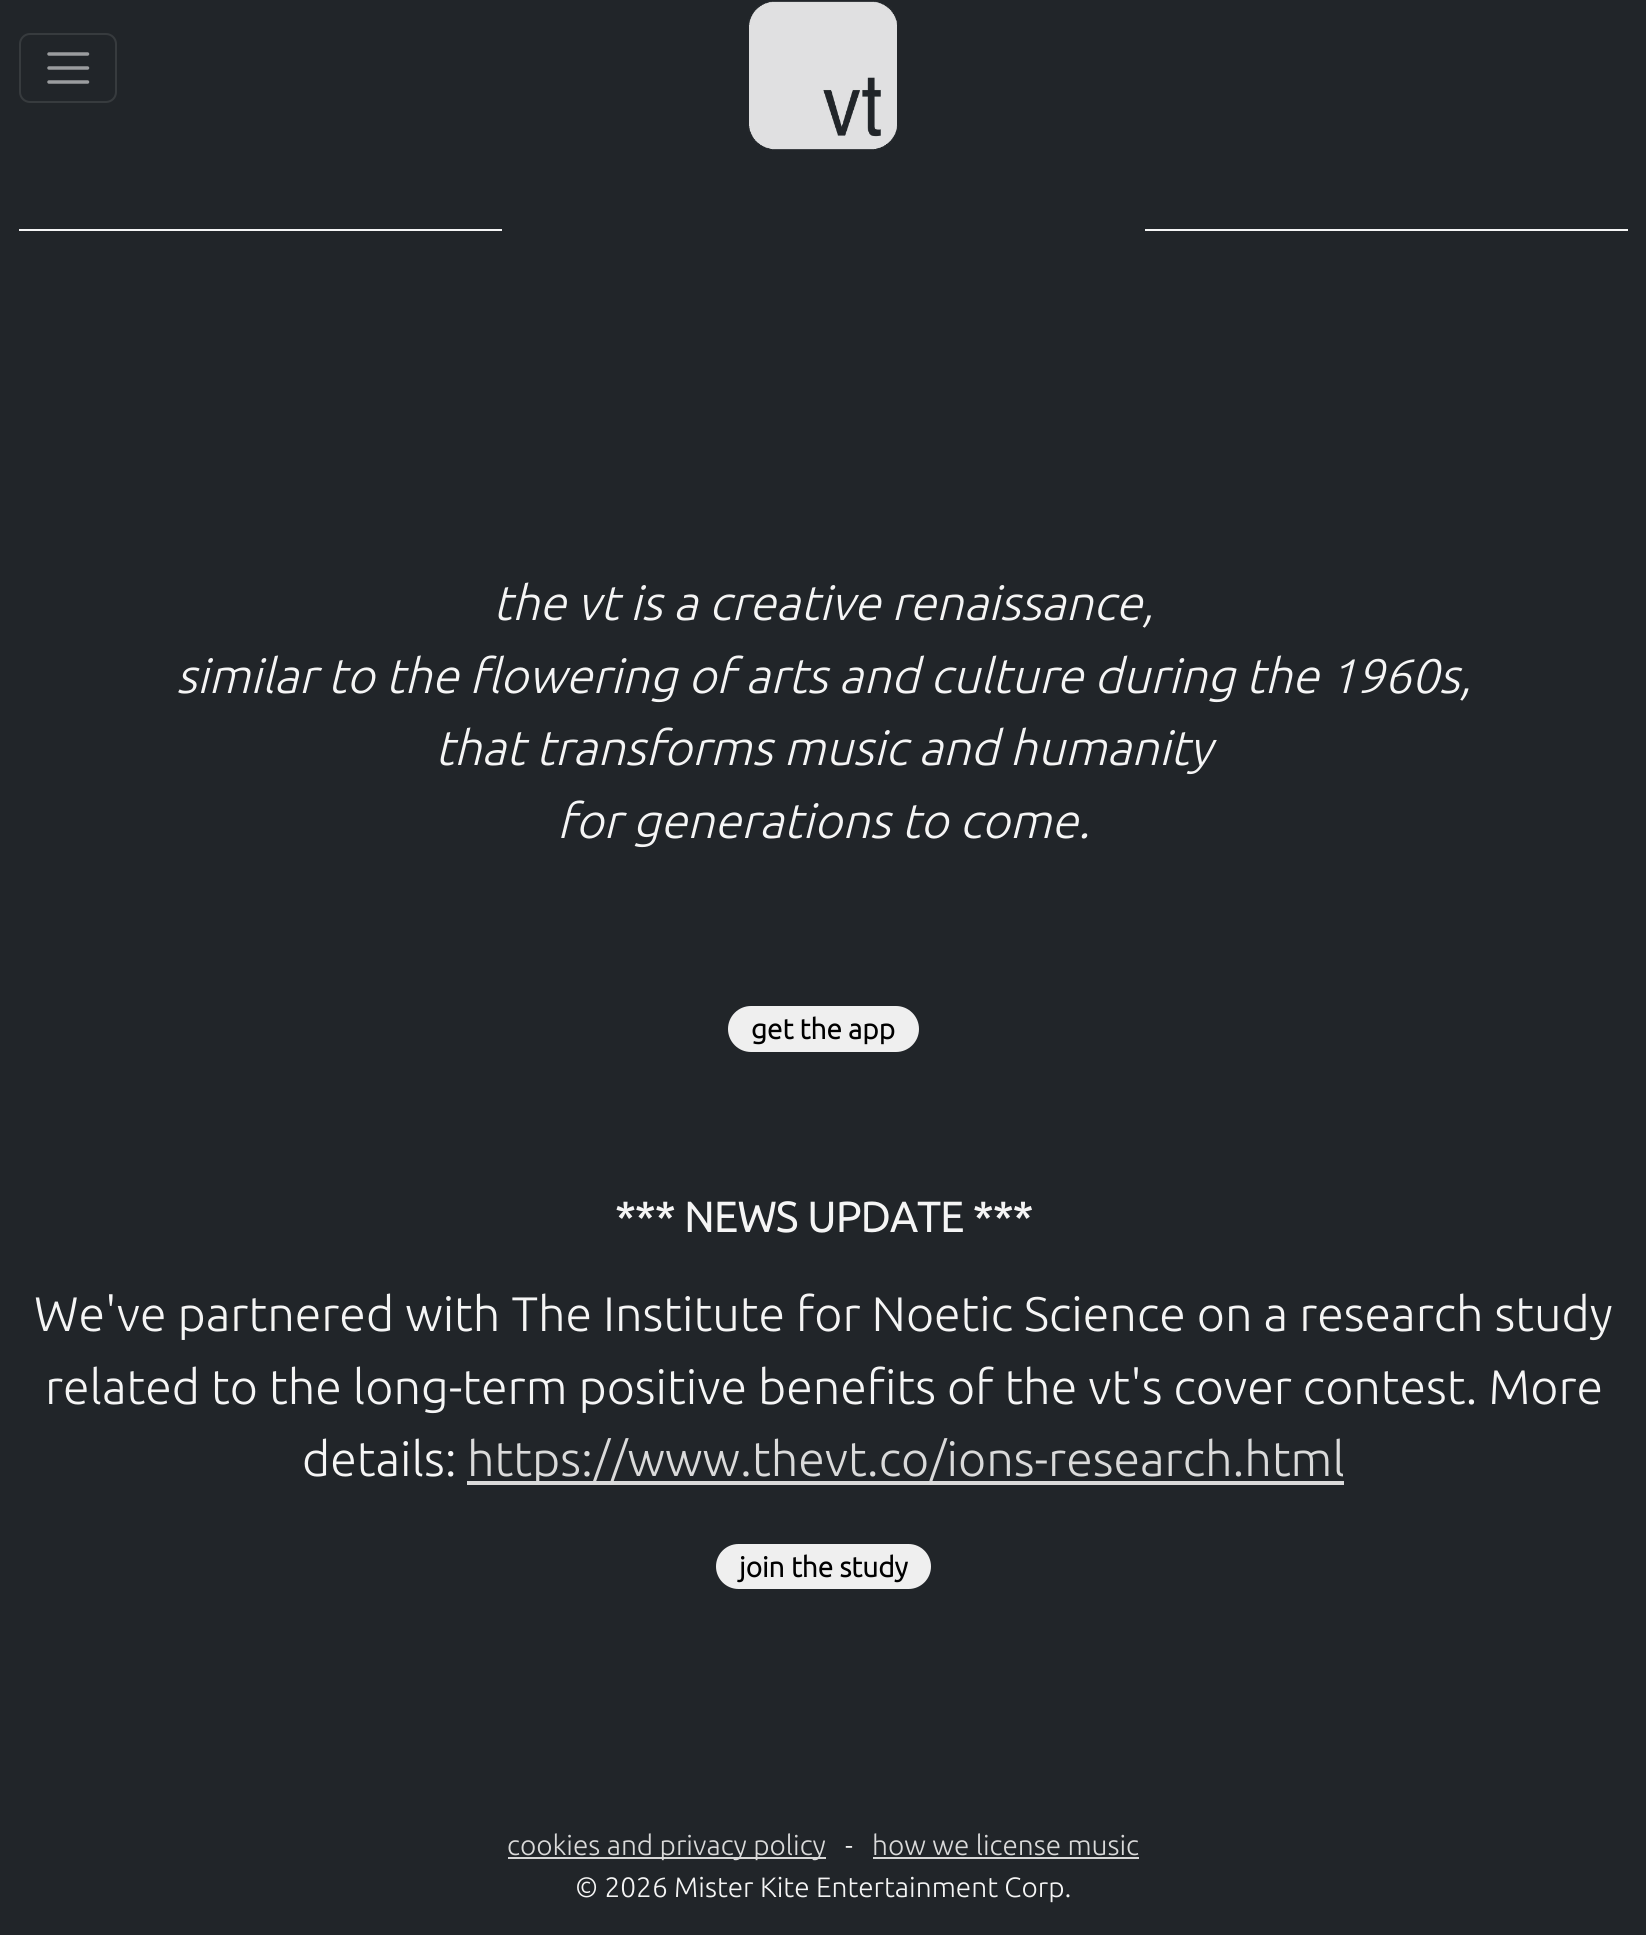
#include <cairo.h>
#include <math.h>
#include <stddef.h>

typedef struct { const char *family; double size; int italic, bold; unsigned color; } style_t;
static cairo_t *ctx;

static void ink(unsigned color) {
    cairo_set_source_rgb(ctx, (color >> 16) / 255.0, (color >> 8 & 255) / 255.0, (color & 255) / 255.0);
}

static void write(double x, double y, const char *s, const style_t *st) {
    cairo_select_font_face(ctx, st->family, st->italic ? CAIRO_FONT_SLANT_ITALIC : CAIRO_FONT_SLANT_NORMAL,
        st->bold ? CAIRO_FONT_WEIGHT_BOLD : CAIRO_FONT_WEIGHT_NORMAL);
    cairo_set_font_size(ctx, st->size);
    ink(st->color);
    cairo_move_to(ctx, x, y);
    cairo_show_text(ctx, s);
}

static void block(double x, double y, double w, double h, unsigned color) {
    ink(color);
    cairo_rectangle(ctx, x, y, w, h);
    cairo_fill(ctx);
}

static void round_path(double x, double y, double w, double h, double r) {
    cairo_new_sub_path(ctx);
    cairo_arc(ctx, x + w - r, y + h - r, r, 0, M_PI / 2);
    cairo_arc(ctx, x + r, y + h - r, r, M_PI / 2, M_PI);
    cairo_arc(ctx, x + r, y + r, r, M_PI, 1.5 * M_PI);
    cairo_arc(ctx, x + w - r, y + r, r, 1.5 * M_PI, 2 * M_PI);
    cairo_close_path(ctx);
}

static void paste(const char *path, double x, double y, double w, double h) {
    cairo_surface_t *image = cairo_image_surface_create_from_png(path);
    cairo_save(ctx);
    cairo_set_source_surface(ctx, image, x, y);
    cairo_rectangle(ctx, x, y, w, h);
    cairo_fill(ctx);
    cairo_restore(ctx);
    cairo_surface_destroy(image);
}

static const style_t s1 = {"Ubuntu Light", 48.4, 1, 0, 0xf5f5f5};
static const style_t s2 = {"Ubuntu", 28, 0, 1, 0x000000};
static const style_t s3 = {"Ubuntu", 42, 0, 1, 0xf5f5f5};
static const style_t s4 = {"Ubuntu Light", 48.4, 0, 0, 0xf5f5f5};
static const style_t s5 = {"Ubuntu Light", 48.4, 0, 0, 0xdadada};
static const style_t s6 = {"Ubuntu Light", 28, 0, 0, 0xdadada};
static const style_t s7 = {"Ubuntu Light", 28, 0, 0, 0xf5f5f5};

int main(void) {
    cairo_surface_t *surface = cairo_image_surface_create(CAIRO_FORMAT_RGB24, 1646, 1935);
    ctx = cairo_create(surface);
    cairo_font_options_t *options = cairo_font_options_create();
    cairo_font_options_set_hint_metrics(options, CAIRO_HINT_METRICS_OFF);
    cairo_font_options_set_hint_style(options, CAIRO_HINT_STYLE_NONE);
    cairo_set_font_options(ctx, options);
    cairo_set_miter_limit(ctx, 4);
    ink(0x212529);
    cairo_paint(ctx);
    round_path(20, 34, 96, 68, 10);
    ink(0x373b3e);
    cairo_stroke(ctx);
    cairo_new_path(ctx);
    cairo_move_to(ctx, 49, 54);
    cairo_line_to(ctx, 87.5, 54);
    cairo_move_to(ctx, 49, 68);
    cairo_line_to(ctx, 87.5, 68);
    cairo_move_to(ctx, 49, 82);
    cairo_line_to(ctx, 87.5, 82);
    ink(0x9b9d9f);
    cairo_set_line_width(ctx, 3.5);
    cairo_set_line_cap(ctx, CAIRO_LINE_CAP_ROUND);
    cairo_stroke(ctx);
    paste("pic1.png", 748, 1, 150, 149);
    block(19, 229, 483, 2, 0xf5f5f5);
    block(1145, 229, 483, 2, 0xf5f5f5);
    write(493, 620, "the vt is a creative renaissance,", &s1);
    write(176, 693, "similar to the flowering of arts and culture during the 1960s,", &s1);
    write(435, 765, "that transforms music and humanity", &s1);
    write(557, 838, "for generations to come.", &s1);
    ink(0xefefef);
    round_path(728, 1006, 191, 46, 23);
    cairo_fill(ctx);
    write(751, 1039, "get the app", &s2);
    write(615, 1232, "*** NEWS UPDATE ***", &s3);
    write(34, 1331, "We've partnered with The Institute for Noetic Science on a research study", &s4);
    write(45, 1404, "related to the long-term positive benefits of the vt's cover contest. More", &s4);
    write(302, 1476, "details:", &s4);
    block(467, 1481, 877, 4, 0xdadada);
    write(467, 1476, "https://www.thevt.co/ions-research.html", &s5);
    ink(0xefefef);
    round_path(716, 1544, 215, 45, 22.5);
    cairo_fill(ctx);
    write(739, 1577, "join the study", &s2);
    block(508, 1857, 318, 2, 0xd7d7d7);
    write(507, 1855, "cookies and privacy policy", &s6);
    write(845, 1855, "-", &s7);
    write(872, 1855, "how we license music", &s6);
    block(873, 1857, 266, 2, 0xd7d7d7);
    write(575, 1897, "© 2026 Mister Kite Entertainment Corp.", &s7);
    cairo_surface_write_to_png(surface, "screenshot.png");
    cairo_font_options_destroy(options);
    cairo_destroy(ctx);
    cairo_surface_destroy(surface);
    return 0;
}
